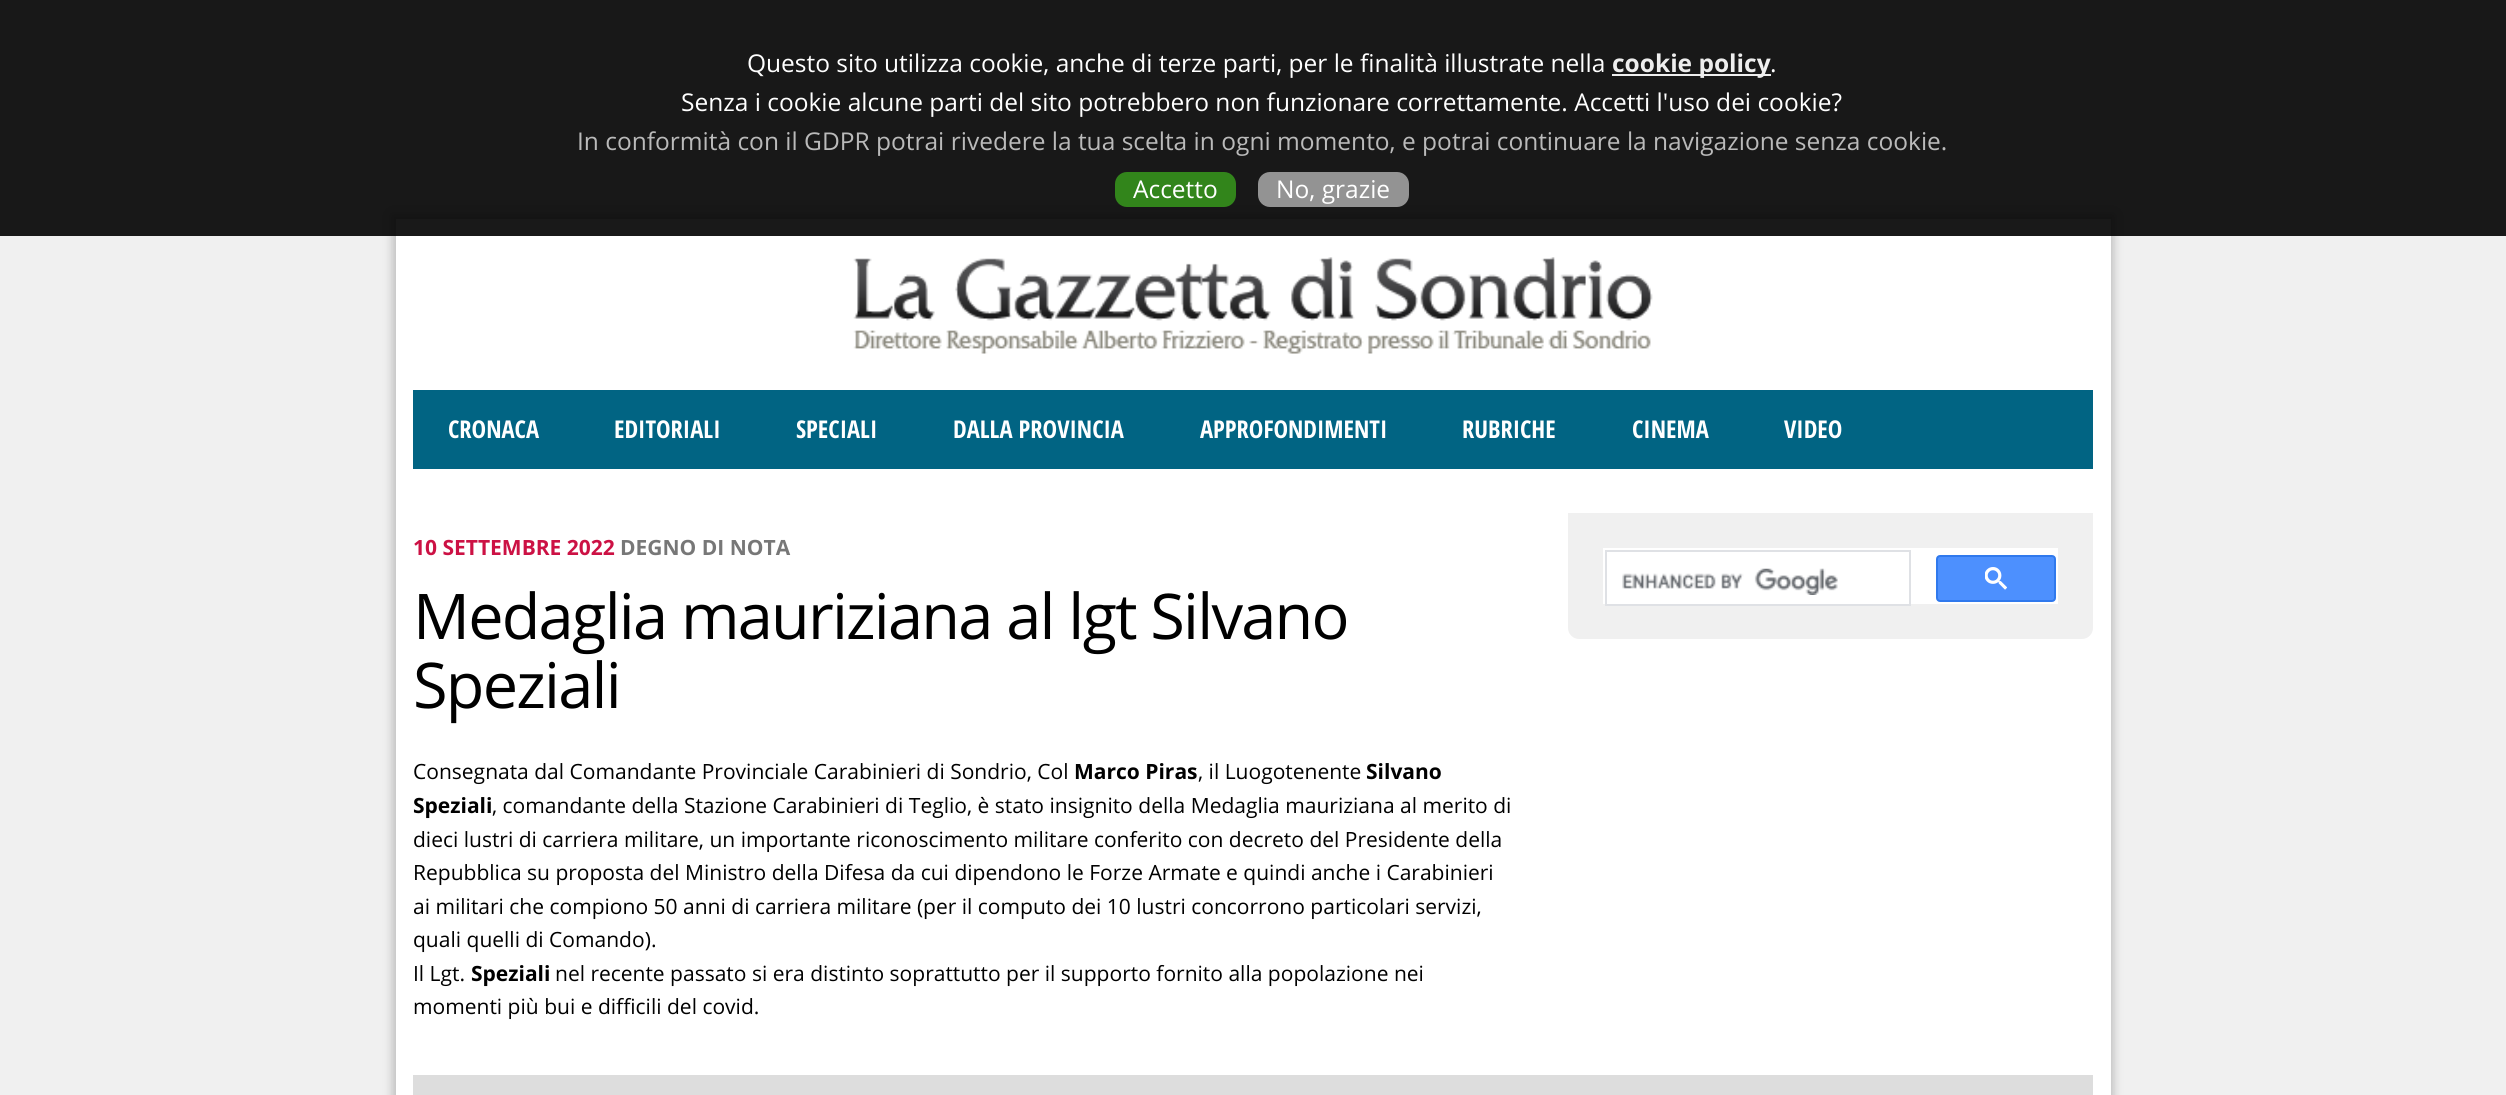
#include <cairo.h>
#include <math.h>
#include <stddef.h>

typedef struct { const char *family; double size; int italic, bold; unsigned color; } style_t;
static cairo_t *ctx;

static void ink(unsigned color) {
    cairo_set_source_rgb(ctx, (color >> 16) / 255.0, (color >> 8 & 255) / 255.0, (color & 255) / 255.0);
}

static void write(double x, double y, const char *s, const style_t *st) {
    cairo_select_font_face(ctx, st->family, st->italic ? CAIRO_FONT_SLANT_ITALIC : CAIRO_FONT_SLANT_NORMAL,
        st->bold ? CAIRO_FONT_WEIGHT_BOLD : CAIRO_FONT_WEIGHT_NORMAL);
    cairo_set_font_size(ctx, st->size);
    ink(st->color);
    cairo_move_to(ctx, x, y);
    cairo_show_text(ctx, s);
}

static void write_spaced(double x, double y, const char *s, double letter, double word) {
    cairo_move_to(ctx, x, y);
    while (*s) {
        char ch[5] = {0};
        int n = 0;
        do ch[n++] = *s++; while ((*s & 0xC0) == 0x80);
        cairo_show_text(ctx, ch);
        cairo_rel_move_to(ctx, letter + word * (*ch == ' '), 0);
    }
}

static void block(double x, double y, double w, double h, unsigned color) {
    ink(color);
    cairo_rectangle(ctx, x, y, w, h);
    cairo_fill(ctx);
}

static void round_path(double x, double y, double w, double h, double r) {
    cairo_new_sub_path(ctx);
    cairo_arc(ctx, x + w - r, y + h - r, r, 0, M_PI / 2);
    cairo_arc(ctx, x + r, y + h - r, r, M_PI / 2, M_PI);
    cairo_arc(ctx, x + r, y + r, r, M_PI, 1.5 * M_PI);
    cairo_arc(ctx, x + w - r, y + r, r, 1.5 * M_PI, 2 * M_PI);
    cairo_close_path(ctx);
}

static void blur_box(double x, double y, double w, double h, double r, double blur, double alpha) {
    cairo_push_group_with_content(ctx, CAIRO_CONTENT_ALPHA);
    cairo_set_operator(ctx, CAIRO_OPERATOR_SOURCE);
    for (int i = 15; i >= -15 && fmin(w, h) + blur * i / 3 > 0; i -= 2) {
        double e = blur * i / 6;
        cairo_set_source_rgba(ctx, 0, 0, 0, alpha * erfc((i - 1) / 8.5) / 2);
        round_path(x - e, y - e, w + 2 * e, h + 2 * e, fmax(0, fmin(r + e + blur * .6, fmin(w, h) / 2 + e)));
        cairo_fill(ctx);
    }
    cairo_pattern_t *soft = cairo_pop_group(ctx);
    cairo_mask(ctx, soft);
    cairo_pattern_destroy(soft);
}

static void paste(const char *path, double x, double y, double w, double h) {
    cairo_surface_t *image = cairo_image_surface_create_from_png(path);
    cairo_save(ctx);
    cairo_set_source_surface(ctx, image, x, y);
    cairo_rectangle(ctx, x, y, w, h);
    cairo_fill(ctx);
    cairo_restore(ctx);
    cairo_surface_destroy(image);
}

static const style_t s1 = {"Open Sans", 24.5, 0, 0, 0xffffff};
static const style_t s2 = {"Open Sans", 24.5, 0, 1, 0xeeeeee};
static const style_t s3 = {"Open Sans", 24.5, 0, 0, 0xbababa};
static const style_t s4 = {"Open Sans Condensed", 24.5, 0, 1, 0xffffff};
static const style_t s5 = {"Open Sans", 21, 0, 1, 0xcc1144};
static const style_t s6 = {"Open Sans", 21, 0, 1, 0x777777};
static const style_t s7 = {"Open Sans", 21, 0, 0, 0x000000};
static const style_t s8 = {"Open Sans", 21, 0, 1, 0x000000};

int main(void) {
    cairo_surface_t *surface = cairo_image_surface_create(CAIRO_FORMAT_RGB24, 2506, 1095);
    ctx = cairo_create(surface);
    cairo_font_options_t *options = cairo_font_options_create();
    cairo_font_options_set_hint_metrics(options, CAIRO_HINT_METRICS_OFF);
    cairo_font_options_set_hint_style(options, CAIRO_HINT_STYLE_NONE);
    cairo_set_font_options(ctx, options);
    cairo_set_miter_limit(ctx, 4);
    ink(0xf0f0f0);
    cairo_paint(ctx);
    ink(0x000000);
    blur_box(392, 215, 1722, 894, 0, 4.5, 0.2);
    block(396, 219, 1715, 876, 0xffffff);
    cairo_set_source_rgba(ctx, 0, 0, 0, 0.9);
    cairo_rectangle(ctx, 0, 0, 2506, 236);
    cairo_fill(ctx);
    write(747, 72, "Questo sito utilizza cookie, anche di terze parti, per le finalità illustrate nella", &s1);
    block(1612, 74, 159, 2, 0xeeeeee);
    write(1612, 72, "cookie policy", &s2);
    write(1770, 72, ".", &s1);
    write(681, 111, "Senza i cookie alcune parti del sito potrebbero non funzionare correttamente. Accetti l'uso dei cookie?", &s1);
    write(577, 150, "In conformità con il GDPR potrai rivedere la tua scelta in ogni momento, e potrai continuare la navigazione senza cookie.", &s3);
    ink(0x32851b);
    round_path(1115, 172, 121, 35, 12);
    cairo_fill(ctx);
    write(1133, 198, "Accetto", &s1);
    ink(0x939393);
    round_path(1258, 172, 151, 35, 12);
    cairo_fill(ctx);
    write(1276, 198, "No, grazie", &s1);
    paste("pic1.png", 853, 257, 800, 97);
    block(413, 390, 1680, 79, 0x016483);
    write(448, 438, "CRONACA", &s4);
    write(614, 438, "EDITORIALI", &s4);
    write(796, 438, "SPECIALI", &s4);
    write(953, 438, "DALLA PROVINCIA", &s4);
    write(1200, 438, "APPROFONDIMENTI", &s4);
    write(1462, 438, "RUBRICHE", &s4);
    write(1632, 438, "CINEMA", &s4);
    write(1784, 438, "VIDEO", &s4);
    write(413, 555, "10 SETTEMBRE 2022", &s5);
    write(620, 555, "DEGNO DI NOTA", &s6);
    cairo_select_font_face(ctx, "Open Sans", CAIRO_FONT_SLANT_NORMAL, CAIRO_FONT_WEIGHT_NORMAL);
    cairo_set_font_size(ctx, 63);
    ink(0x000000);
    write_spaced(413, 639, "Medaglia mauriziana al lgt Silvano", -1.75, 0);
    write_spaced(413, 708, "Speziali", -1.75, 0);
    write(413, 779, "Consegnata dal Comandante Provinciale Carabinieri di Sondrio, Col", &s7);
    write(1074, 779, "Marco Piras", &s8);
    write(1198, 779, ", il Luogotenente", &s7);
    write(1366, 779, "Silvano", &s8);
    write(413, 813, "Speziali", &s8);
    write(492, 813, ", comandante della Stazione Carabinieri di Teglio, è stato insignito della Medaglia mauriziana al merito di", &s7);
    write(413, 847, "dieci lustri di carriera militare, un importante riconoscimento militare conferito con decreto del Presidente della", &s7);
    write(413, 880, "Repubblica su proposta del Ministro della Difesa da cui dipendono le Forze Armate e quindi anche i Carabinieri", &s7);
    write(413, 914, "ai militari che compiono 50 anni di carriera militare (per il computo dei 10 lustri concorrono particolari servizi,", &s7);
    write(413, 947, "quali quelli di Comando).", &s7);
    write(413, 981, "Il Lgt.", &s7);
    write(471, 981, "Speziali", &s8);
    write(555, 981, "nel recente passato si era distinto soprattutto per il supporto fornito alla popolazione nei", &s7);
    write(413, 1014, "momenti più bui e difficili del covid.", &s7);
    ink(0xf0f0f0);
    cairo_new_path(ctx);
    cairo_move_to(ctx, 1568, 513);
    cairo_line_to(ctx, 2093, 513);
    cairo_line_to(ctx, 2093, 628);
    cairo_curve_to(ctx, 2093, 634, 2088, 639, 2082, 639);
    cairo_line_to(ctx, 1579, 639);
    cairo_curve_to(ctx, 1573, 639, 1568, 634, 1568, 628);
    cairo_close_path(ctx);
    cairo_fill(ctx);
    block(1603, 548, 455, 56, 0xffffff);
    cairo_rectangle(ctx, 1606, 551, 304, 54);
    ink(0xdfe1e5);
    cairo_stroke(ctx);
    paste("pic2.png", 1622, 568, 216, 27);
    ink(0x4d90fe);
    round_path(1937, 556, 118, 45, 3);
    cairo_fill_preserve(ctx);
    ink(0x3079ed);
    cairo_stroke(ctx);
    paste("pic3.png", 1985, 567, 22, 23);
    block(413, 1075, 1680, 20, 0xdddddd);
    cairo_surface_write_to_png(surface, "screenshot.png");
    cairo_font_options_destroy(options);
    cairo_destroy(ctx);
    cairo_surface_destroy(surface);
    return 0;
}
